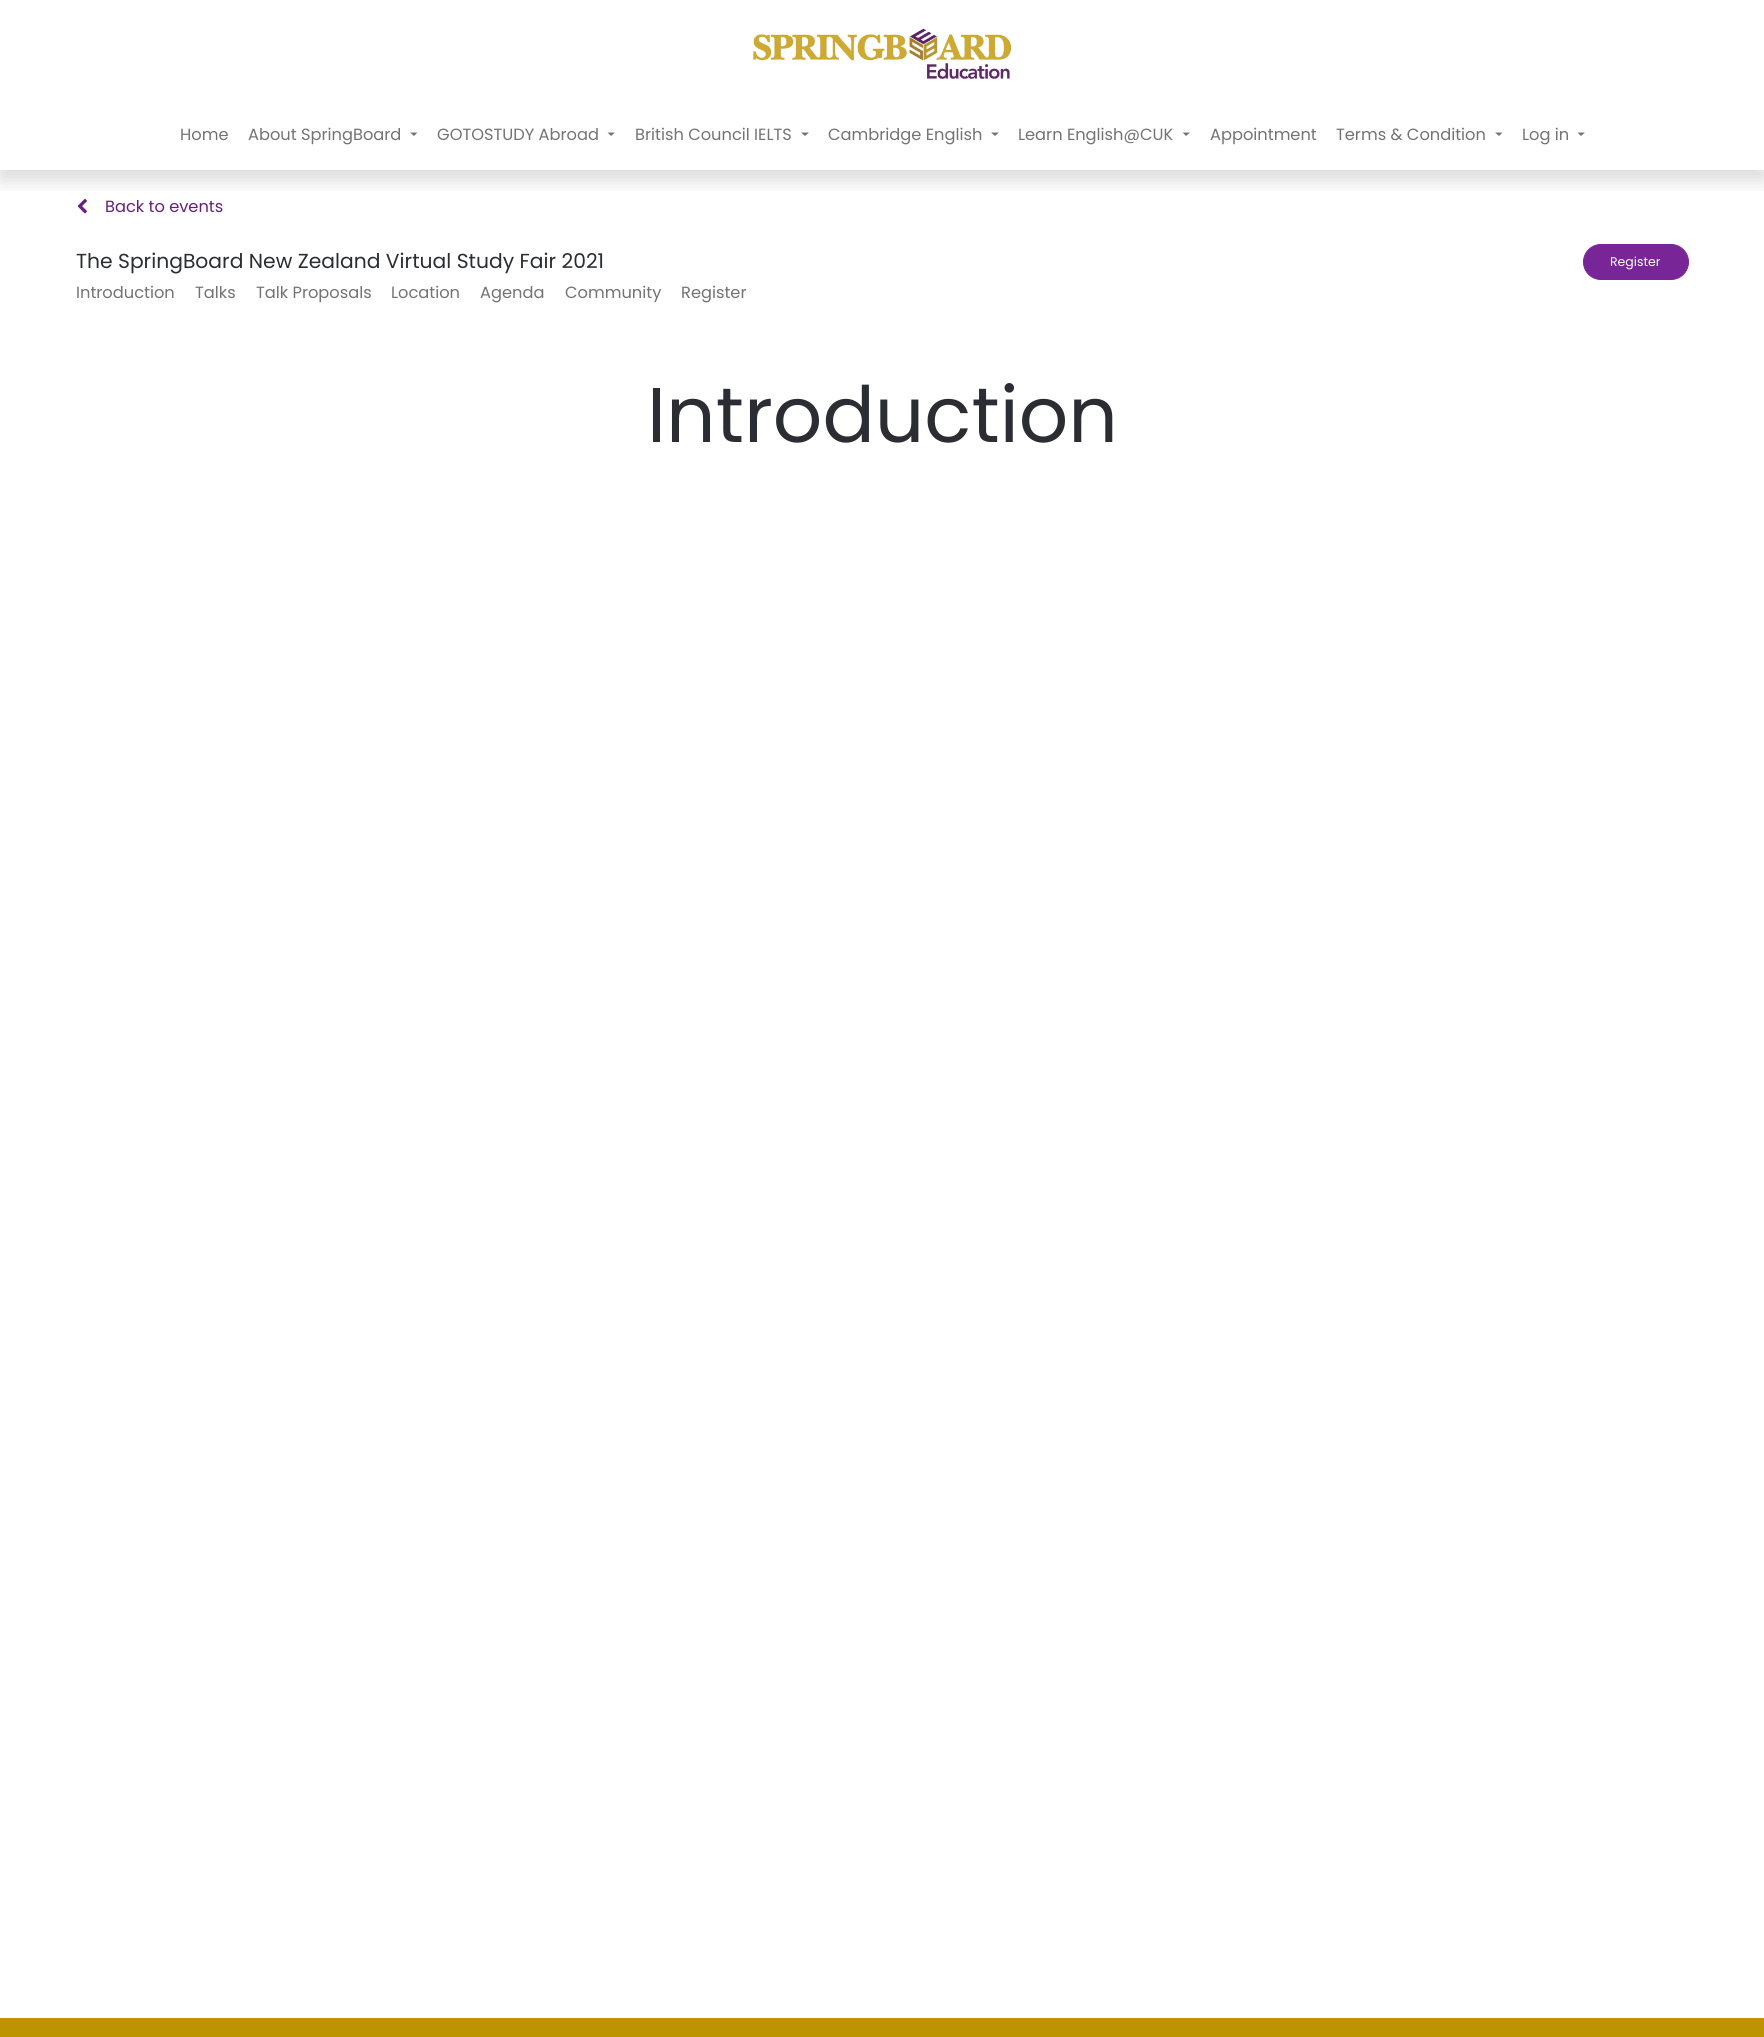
#include <cairo.h>
#include <math.h>
#include <stddef.h>

typedef struct { const char *family; double size; int italic, bold; unsigned color; } style_t;
static cairo_t *ctx;

static void ink(unsigned color) {
    cairo_set_source_rgb(ctx, (color >> 16) / 255.0, (color >> 8 & 255) / 255.0, (color & 255) / 255.0);
}

static void write(double x, double y, const char *s, const style_t *st) {
    cairo_select_font_face(ctx, st->family, st->italic ? CAIRO_FONT_SLANT_ITALIC : CAIRO_FONT_SLANT_NORMAL,
        st->bold ? CAIRO_FONT_WEIGHT_BOLD : CAIRO_FONT_WEIGHT_NORMAL);
    cairo_set_font_size(ctx, st->size);
    ink(st->color);
    cairo_move_to(ctx, x, y);
    cairo_show_text(ctx, s);
}

static void block(double x, double y, double w, double h, unsigned color) {
    ink(color);
    cairo_rectangle(ctx, x, y, w, h);
    cairo_fill(ctx);
}

static void round_path(double x, double y, double w, double h, double r) {
    cairo_new_sub_path(ctx);
    cairo_arc(ctx, x + w - r, y + h - r, r, 0, M_PI / 2);
    cairo_arc(ctx, x + r, y + h - r, r, M_PI / 2, M_PI);
    cairo_arc(ctx, x + r, y + r, r, M_PI, 1.5 * M_PI);
    cairo_arc(ctx, x + w - r, y + r, r, 1.5 * M_PI, 2 * M_PI);
    cairo_close_path(ctx);
}

static void blur_box(double x, double y, double w, double h, double r, double blur, double alpha) {
    cairo_push_group_with_content(ctx, CAIRO_CONTENT_ALPHA);
    cairo_set_operator(ctx, CAIRO_OPERATOR_SOURCE);
    for (int i = 15; i >= -15 && fmin(w, h) + blur * i / 3 > 0; i -= 2) {
        double e = blur * i / 6;
        cairo_set_source_rgba(ctx, 0, 0, 0, alpha * erfc((i - 1) / 8.5) / 2);
        round_path(x - e, y - e, w + 2 * e, h + 2 * e, fmax(0, fmin(r + e + blur * .6, fmin(w, h) / 2 + e)));
        cairo_fill(ctx);
    }
    cairo_pattern_t *soft = cairo_pop_group(ctx);
    cairo_mask(ctx, soft);
    cairo_pattern_destroy(soft);
}

static void paste(const char *path, double x, double y, double w, double h) {
    cairo_surface_t *image = cairo_image_surface_create_from_png(path);
    cairo_save(ctx);
    cairo_set_source_surface(ctx, image, x, y);
    cairo_rectangle(ctx, x, y, w, h);
    cairo_fill(ctx);
    cairo_restore(ctx);
    cairo_surface_destroy(image);
}

static const style_t s1 = {"Poppins", 16.25, 0, 0, 0x737373};
static const style_t s2 = {"Poppins", 16.25, 0, 0, 0x65207f};
static const style_t s3 = {"Poppins", 20.3, 0, 0, 0x2b2d33};
static const style_t s4 = {"Poppins", 12.5, 0, 0, 0xffffff};
static const style_t s5 = {"Poppins", 77.5, 0, 0, 0x2b2d33};

int main(void) {
    cairo_surface_t *surface = cairo_image_surface_create(CAIRO_FORMAT_RGB24, 1764, 2037);
    ctx = cairo_create(surface);
    cairo_font_options_t *options = cairo_font_options_create();
    cairo_font_options_set_hint_metrics(options, CAIRO_HINT_METRICS_OFF);
    cairo_font_options_set_hint_style(options, CAIRO_HINT_STYLE_NONE);
    cairo_set_font_options(ctx, options);
    cairo_set_miter_limit(ctx, 4);
    ink(0xffffff);
    cairo_paint(ctx);
    paste("pic2.png", 77, 198, 10, 16);
    cairo_save(ctx);
    cairo_rectangle(ctx, 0, 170, 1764, 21);
    cairo_clip(ctx);
    ink(0x000000);
    blur_box(0, 10, 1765, 170, 0, 10, 0.15);
    cairo_restore(ctx);
    paste("pic1.png", 752, 28, 260, 51);
    write(180, 140, "Home", &s1);
    write(248, 140, "About SpringBoard", &s1);
    cairo_new_path(ctx);
    cairo_move_to(ctx, 410, 132.5);
    cairo_line_to(ctx, 417.5, 132.5);
    cairo_line_to(ctx, 414, 136);
    cairo_close_path(ctx);
    cairo_fill(ctx);
    write(437, 140, "GOTOSTUDY Abroad", &s1);
    cairo_new_path(ctx);
    cairo_move_to(ctx, 607.5, 132.5);
    cairo_line_to(ctx, 615, 132.5);
    cairo_line_to(ctx, 611, 136);
    cairo_close_path(ctx);
    cairo_fill(ctx);
    write(635, 140, "British Council IELTS", &s1);
    cairo_new_path(ctx);
    cairo_move_to(ctx, 801, 132.5);
    cairo_line_to(ctx, 809, 132.5);
    cairo_line_to(ctx, 805, 136);
    cairo_close_path(ctx);
    cairo_fill(ctx);
    write(828, 140, "Cambridge English", &s1);
    cairo_new_path(ctx);
    cairo_move_to(ctx, 991, 132.5);
    cairo_line_to(ctx, 999, 132.5);
    cairo_line_to(ctx, 995, 136);
    cairo_close_path(ctx);
    cairo_fill(ctx);
    write(1018, 140, "Learn English@CUK", &s1);
    cairo_new_path(ctx);
    cairo_move_to(ctx, 1182.5, 132.5);
    cairo_line_to(ctx, 1190, 132.5);
    cairo_line_to(ctx, 1186, 136);
    cairo_close_path(ctx);
    cairo_fill(ctx);
    write(1210, 140, "Appointment", &s1);
    write(1336, 140, "Terms & Condition", &s1);
    cairo_new_path(ctx);
    cairo_move_to(ctx, 1495, 132.5);
    cairo_line_to(ctx, 1502.5, 132.5);
    cairo_line_to(ctx, 1499, 136);
    cairo_close_path(ctx);
    cairo_fill(ctx);
    write(1522, 140, "Log in", &s1);
    cairo_new_path(ctx);
    cairo_move_to(ctx, 1577.5, 132.5);
    cairo_line_to(ctx, 1585, 132.5);
    cairo_line_to(ctx, 1581, 136);
    cairo_close_path(ctx);
    cairo_fill(ctx);
    write(105, 212, "Back to events", &s2);
    write(76, 268, "The SpringBoard New Zealand Virtual Study Fair 2021", &s3);
    ink(0x782697);
    round_path(1583.5, 244.5, 105, 35, 17.5);
    cairo_fill_preserve(ctx);
    cairo_set_line_width(ctx, 1);
    cairo_stroke(ctx);
    write(1610, 266, "Register", &s4);
    write(76, 298, "Introduction", &s1);
    write(195, 298, "Talks", &s1);
    write(256, 298, "Talk Proposals", &s1);
    write(391, 298, "Location", &s1);
    write(480, 298, "Agenda", &s1);
    write(565, 298, "Community", &s1);
    write(681, 298, "Register", &s1);
    write(647, 442, "Introduction", &s5);
    block(0, 2018, 1764, 19, 0xbd9400);
    cairo_surface_write_to_png(surface, "screenshot.png");
    cairo_font_options_destroy(options);
    cairo_destroy(ctx);
    cairo_surface_destroy(surface);
    return 0;
}
